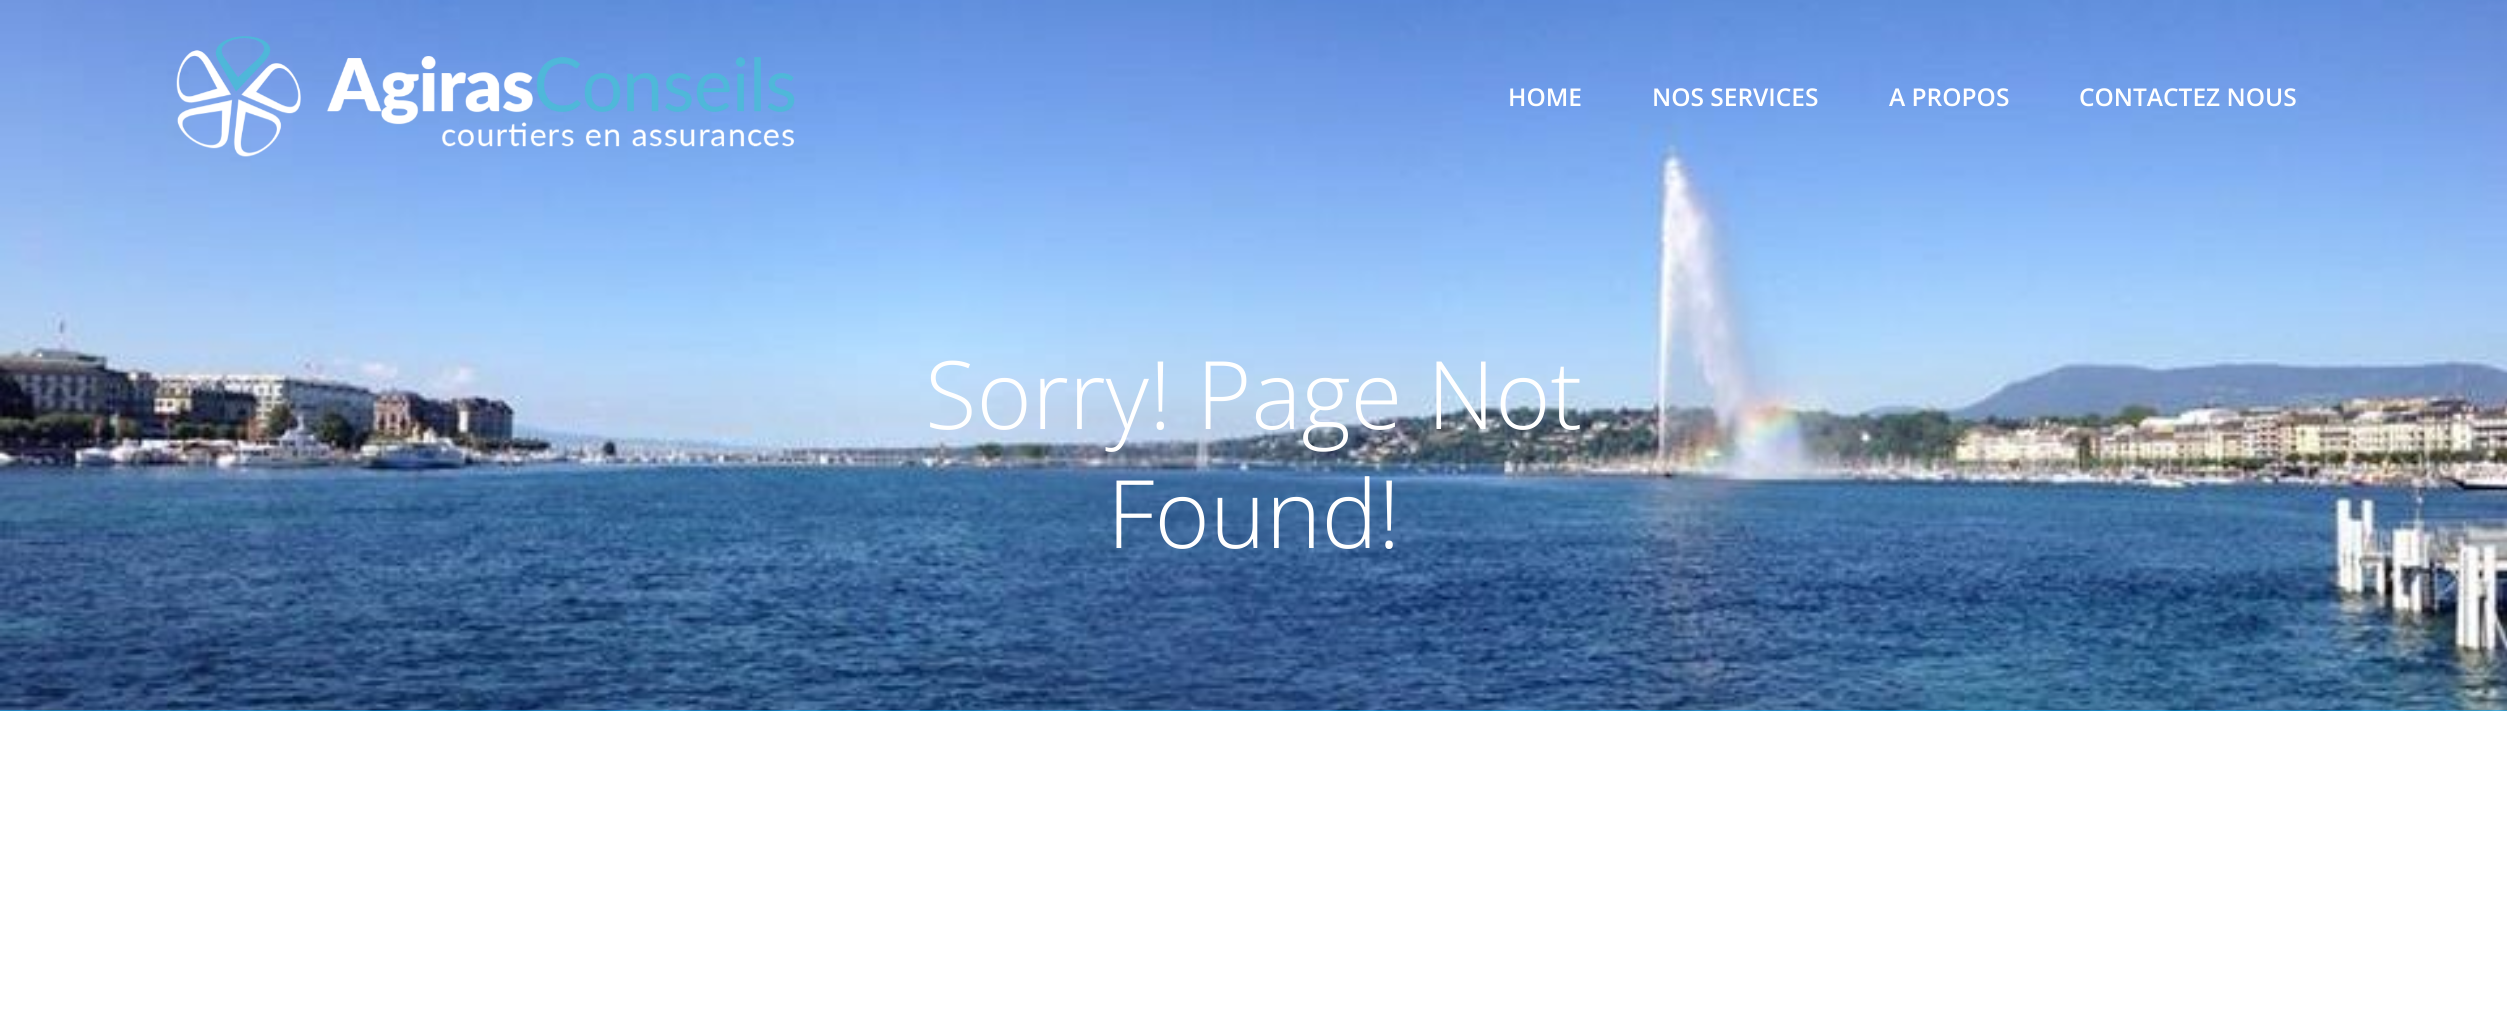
#include <cairo.h>
#include <math.h>
#include <stddef.h>

typedef struct { const char *family; double size; int italic, bold; unsigned color; } style_t;
static cairo_t *ctx;

static void ink(unsigned color) {
    cairo_set_source_rgb(ctx, (color >> 16) / 255.0, (color >> 8 & 255) / 255.0, (color & 255) / 255.0);
}

static void write(double x, double y, const char *s, const style_t *st) {
    cairo_select_font_face(ctx, st->family, st->italic ? CAIRO_FONT_SLANT_ITALIC : CAIRO_FONT_SLANT_NORMAL,
        st->bold ? CAIRO_FONT_WEIGHT_BOLD : CAIRO_FONT_WEIGHT_NORMAL);
    cairo_set_font_size(ctx, st->size);
    ink(st->color);
    cairo_move_to(ctx, x, y);
    cairo_show_text(ctx, s);
}

static void block(double x, double y, double w, double h, unsigned color) {
    ink(color);
    cairo_rectangle(ctx, x, y, w, h);
    cairo_fill(ctx);
}

static void paste(const char *path, double x, double y, double w, double h) {
    cairo_surface_t *image = cairo_image_surface_create_from_png(path);
    cairo_save(ctx);
    cairo_set_source_surface(ctx, image, x, y);
    cairo_rectangle(ctx, x, y, w, h);
    cairo_fill(ctx);
    cairo_restore(ctx);
    cairo_surface_destroy(image);
}

static const style_t s1 = {"Open Sans SemiBold", 24.5, 0, 0, 0xffffff};
static const style_t s2 = {"Open Sans Light", 94.5, 0, 0, 0xffffff};

int main(void) {
    cairo_surface_t *surface = cairo_image_surface_create(CAIRO_FORMAT_RGB24, 2507, 1015);
    ctx = cairo_create(surface);
    cairo_font_options_t *options = cairo_font_options_create();
    cairo_font_options_set_hint_metrics(options, CAIRO_HINT_METRICS_OFF);
    cairo_font_options_set_hint_style(options, CAIRO_HINT_STYLE_NONE);
    cairo_set_font_options(ctx, options);
    cairo_set_miter_limit(ctx, 4);
    ink(0xffffff);
    cairo_paint(ctx);
    block(0, 710, 2507, 1, 0x03a9f4);
    paste("pic2.png", 0, 0, 2507, 711);
    paste("pic1.png", 176, 36, 619, 121);
    write(1508, 106, "HOME", &s1);
    write(1652, 106, "NOS SERVICES", &s1);
    write(1889, 106, "A PROPOS", &s1);
    write(2079, 106, "CONTACTEZ NOUS", &s1);
    write(925, 429, "Sorry! Page Not", &s2);
    write(1107, 548, "Found!", &s2);
    cairo_surface_write_to_png(surface, "screenshot.png");
    cairo_font_options_destroy(options);
    cairo_destroy(ctx);
    cairo_surface_destroy(surface);
    return 0;
}
